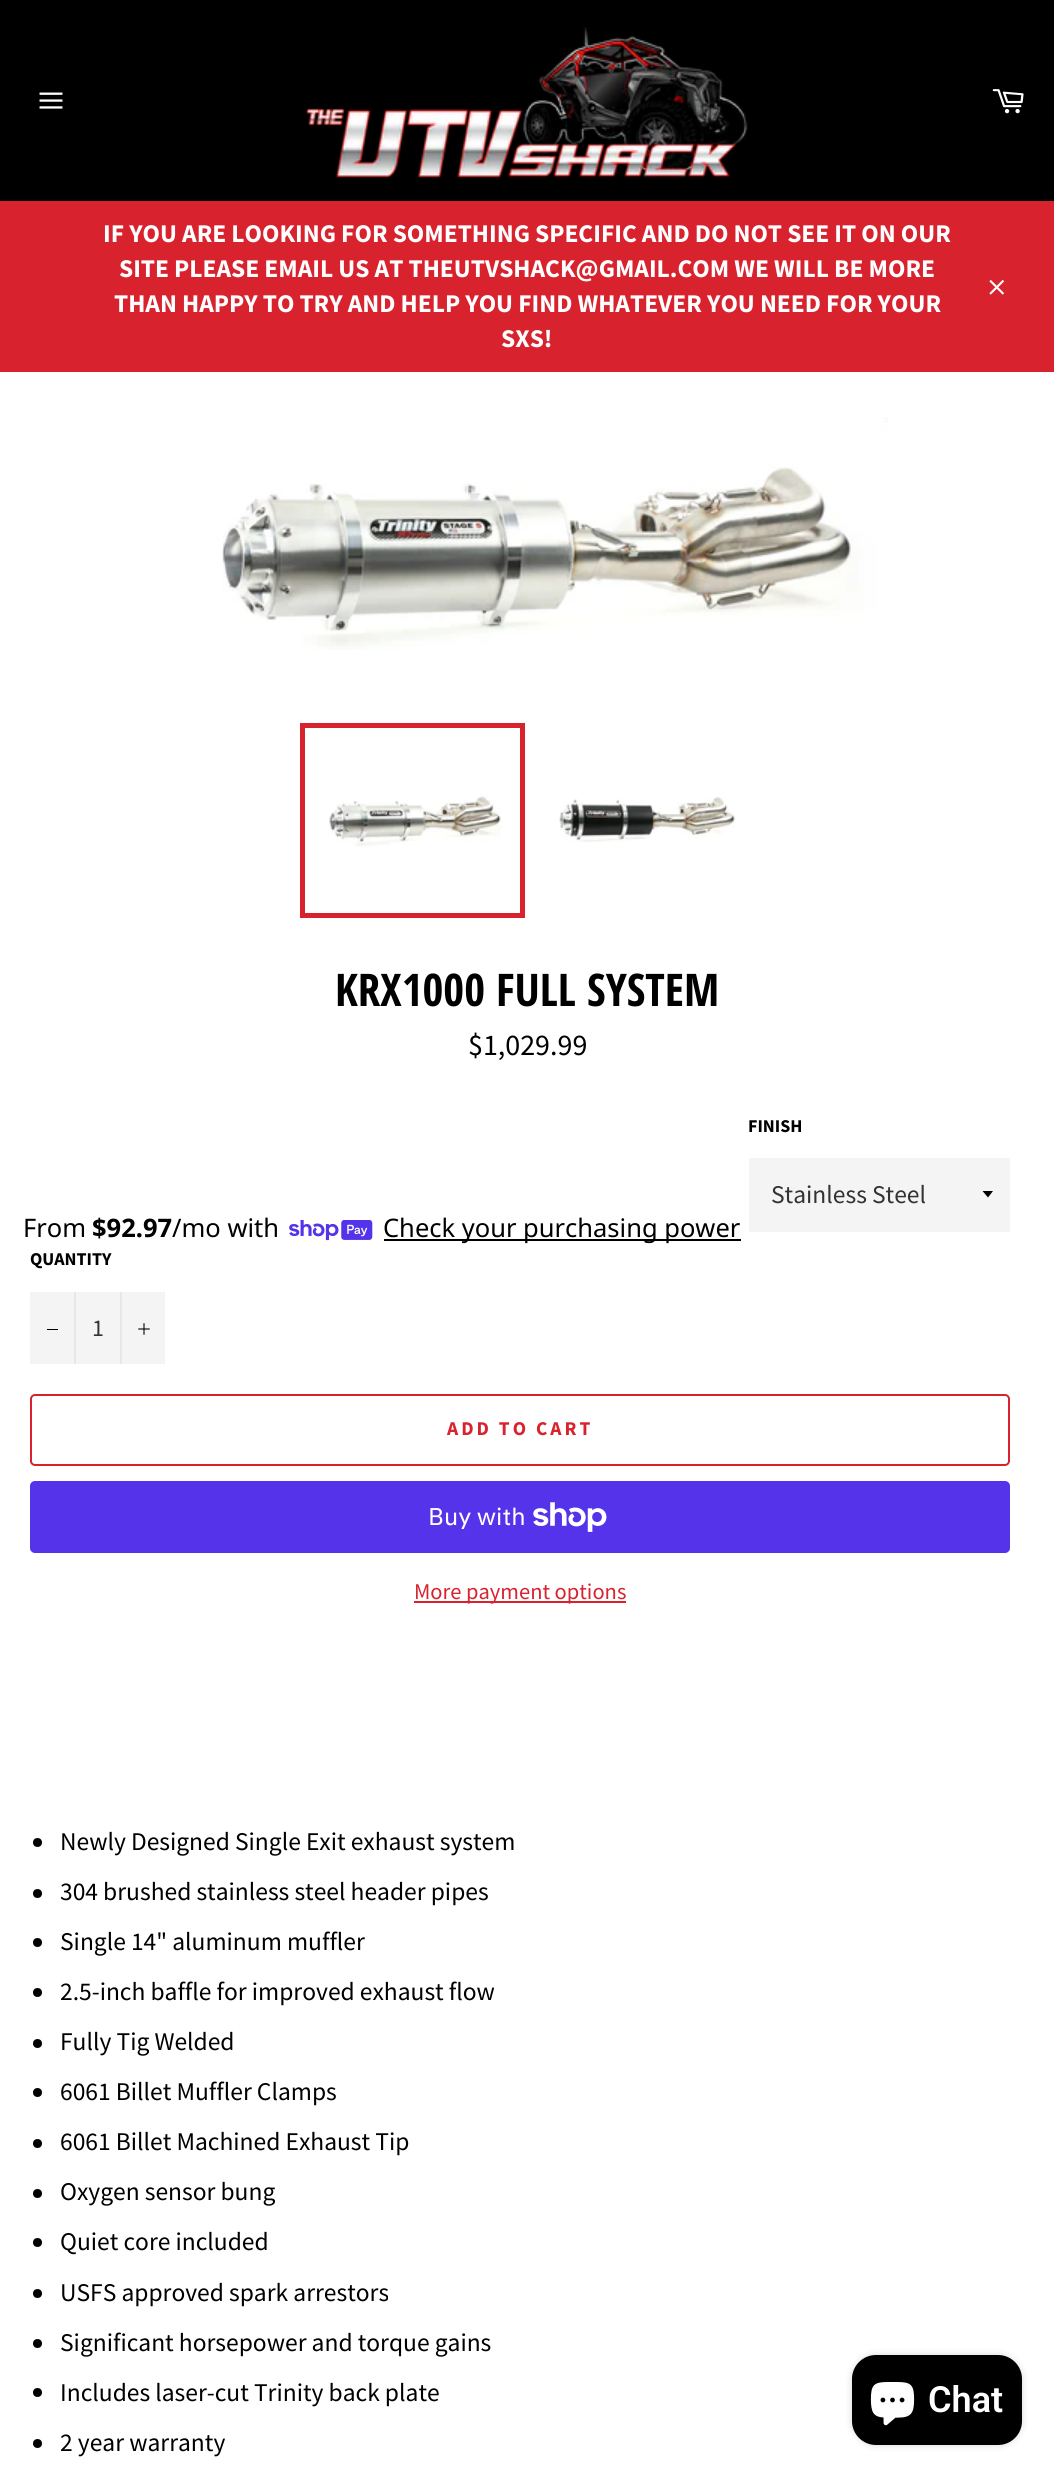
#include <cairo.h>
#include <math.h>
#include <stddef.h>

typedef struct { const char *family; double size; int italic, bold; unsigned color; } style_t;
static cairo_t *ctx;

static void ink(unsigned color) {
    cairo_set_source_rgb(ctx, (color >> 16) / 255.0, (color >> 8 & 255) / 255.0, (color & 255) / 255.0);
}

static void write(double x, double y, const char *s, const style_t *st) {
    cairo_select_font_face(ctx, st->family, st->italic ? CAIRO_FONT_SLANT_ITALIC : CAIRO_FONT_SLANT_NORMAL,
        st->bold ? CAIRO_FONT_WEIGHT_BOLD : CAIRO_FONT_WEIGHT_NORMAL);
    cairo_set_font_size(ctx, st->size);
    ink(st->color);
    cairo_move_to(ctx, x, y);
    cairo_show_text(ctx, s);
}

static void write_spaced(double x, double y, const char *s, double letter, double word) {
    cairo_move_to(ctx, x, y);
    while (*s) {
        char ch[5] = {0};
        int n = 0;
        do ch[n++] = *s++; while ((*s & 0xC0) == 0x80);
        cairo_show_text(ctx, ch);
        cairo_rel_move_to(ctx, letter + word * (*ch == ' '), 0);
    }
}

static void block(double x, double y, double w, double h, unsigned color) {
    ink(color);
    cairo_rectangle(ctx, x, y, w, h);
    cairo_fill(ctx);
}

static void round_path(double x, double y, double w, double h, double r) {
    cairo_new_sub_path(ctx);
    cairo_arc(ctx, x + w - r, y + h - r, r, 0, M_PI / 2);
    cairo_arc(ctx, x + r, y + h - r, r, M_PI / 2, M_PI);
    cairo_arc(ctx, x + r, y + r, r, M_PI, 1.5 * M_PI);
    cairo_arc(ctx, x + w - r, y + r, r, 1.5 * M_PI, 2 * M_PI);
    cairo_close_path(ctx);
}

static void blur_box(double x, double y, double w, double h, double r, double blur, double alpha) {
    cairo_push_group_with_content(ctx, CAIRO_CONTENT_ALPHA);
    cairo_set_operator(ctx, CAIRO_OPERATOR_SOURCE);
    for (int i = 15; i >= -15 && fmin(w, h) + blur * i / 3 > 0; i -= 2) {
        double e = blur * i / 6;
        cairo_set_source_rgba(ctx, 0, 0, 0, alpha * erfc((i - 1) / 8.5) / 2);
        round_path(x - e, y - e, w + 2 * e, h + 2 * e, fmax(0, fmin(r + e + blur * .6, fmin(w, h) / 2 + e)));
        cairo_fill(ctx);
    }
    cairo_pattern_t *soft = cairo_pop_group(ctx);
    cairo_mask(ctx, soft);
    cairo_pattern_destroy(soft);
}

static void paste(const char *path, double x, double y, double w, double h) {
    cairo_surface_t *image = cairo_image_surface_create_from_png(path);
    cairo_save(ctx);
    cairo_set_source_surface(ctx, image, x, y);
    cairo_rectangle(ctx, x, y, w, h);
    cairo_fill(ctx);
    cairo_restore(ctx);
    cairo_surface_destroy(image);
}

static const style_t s1 = {"Source Sans Pro", 25.5, 0, 1, 0xffffff};
static const style_t s2 = {"Open Sans Condensed", 45, 0, 1, 0x000000};
static const style_t s3 = {"Source Sans Pro", 30, 0, 0, 0x000000};
static const style_t s4 = {"Source Sans Pro", 18, 0, 1, 0x000000};
static const style_t s5 = {"Source Sans Pro", 25.5, 0, 0, 0x333333};
static const style_t s6 = {"Noto Sans", 25.5, 0, 0, 0x000000};
static const style_t s7 = {"Noto Sans", 25.5, 0, 1, 0x000000};
static const style_t s8 = {"Source Sans Pro", 24, 0, 0, 0x333333};
static const style_t s9 = {"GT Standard", 24, 0, 0, 0xffffff};
static const style_t s10 = {"Source Sans Pro", 22.5, 0, 0, 0xd8232f};
static const style_t s11 = {"Source Sans Pro", 25.5, 0, 0, 0x000000};
static const style_t s12 = {"Roboto SemiBold", 36, 0, 0, 0xffffff};

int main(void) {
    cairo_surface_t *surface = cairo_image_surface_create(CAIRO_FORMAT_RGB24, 1054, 2476);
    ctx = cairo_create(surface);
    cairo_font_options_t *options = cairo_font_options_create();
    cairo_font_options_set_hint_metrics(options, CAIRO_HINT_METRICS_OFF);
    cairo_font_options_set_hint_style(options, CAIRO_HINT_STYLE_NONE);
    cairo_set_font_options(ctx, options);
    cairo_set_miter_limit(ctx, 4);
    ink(0xffffff);
    cairo_paint(ctx);
    block(0, 0, 1054, 201, 0x000000);
    paste("pic1.png", 39, 92, 24, 17);
    paste("pic2.png", 305, 27, 443, 151);
    paste("pic3.png", 992, 89, 32, 25);
    block(0, 201, 1054, 171, 0xd8232f);
    write(103, 242, "IF YOU ARE LOOKING FOR SOMETHING SPECIFIC AND DO NOT SEE IT ON OUR", &s1);
    write(119, 277, "SITE PLEASE EMAIL US AT THEUTVSHACK@GMAIL.COM WE WILL BE MORE", &s1);
    write(114, 312, "THAN HAPPY TO TRY AND HELP YOU FIND WHATEVER YOU NEED FOR YOUR", &s1);
    write(501, 347, "SXS!", &s1);
    paste("pic4.png", 989, 279, 16, 16);
    paste("pic5.png", 222, 417, 666, 233);
    paste("pic6.png", 329, 794, 172, 53);
    cairo_rectangle(ctx, 302.5, 725.5, 220, 190);
    ink(0xd8232f);
    cairo_set_line_width(ctx, 5);
    cairo_stroke(ctx);
    paste("pic7.png", 559, 796, 180, 47);
    write(335, 1006, "KRX1000 FULL SYSTEM", &s2);
    write(468, 1055, "$1,029.99", &s3);
    write(748, 1132, "FINISH", &s4);
    block(749, 1158, 261, 74, 0xf4f4f4);
    ink(0x000000);
    cairo_new_path(ctx);
    cairo_move_to(ctx, 982.5, 1191);
    cairo_line_to(ctx, 988, 1197.5);
    cairo_line_to(ctx, 993, 1191);
    cairo_close_path(ctx);
    cairo_fill(ctx);
    write(771, 1203, "Stainless Steel", &s5);
    write(23, 1237, "From", &s6);
    write(92, 1237, "$92.97", &s7);
    write(172, 1237, "/mo with", &s6);
    paste("pic8.png", 289, 1220, 84, 21);
    block(384, 1239, 357, 2, 0x000000);
    write(383, 1237, "Check your purchasing power", &s6);
    write(30, 1265, "QUANTITY", &s4);
    block(30, 1292, 135, 72, 0xf4f4f4);
    block(74, 1292, 2, 72, 0xe7e7e7);
    block(47, 1329, 11, 1, 0x000000);
    write(92, 1336, "1", &s8);
    block(120, 1292, 2, 72, 0xe7e7e7);
    paste("pic9.png", 138, 1323, 12, 12);
    round_path(31, 1395, 978, 70, 4);
    ink(0xd8232f);
    cairo_set_line_width(ctx, 2);
    cairo_stroke(ctx);
    cairo_select_font_face(ctx, "Source Sans Pro", CAIRO_FONT_SLANT_NORMAL, CAIRO_FONT_WEIGHT_BOLD);
    cairo_set_font_size(ctx, 19.5);
    write_spaced(447, 1435, "ADD TO CART", 3, 0);
    ink(0x5433eb);
    round_path(30, 1481, 980, 72, 5);
    cairo_fill(ctx);
    write(428, 1525, "Buy with", &s9);
    paste("pic10.png", 533, 1502, 74, 30);
    block(414, 1601, 212, 2, 0xd8232f);
    write(414, 1599, "More payment options", &s10);
    ink(0x000000);
    cairo_new_path(ctx);
    cairo_arc(ctx, 37.5, 1842.5, 4.5, 0, 2 * M_PI);
    cairo_fill(ctx);
    write(60, 1850, "Newly Designed Single Exit exhaust system", &s11);
    cairo_new_path(ctx);
    cairo_arc(ctx, 37.5, 1893.5, 4.5, 0, 2 * M_PI);
    cairo_fill(ctx);
    write(60, 1900, "304 brushed stainless steel header pipes", &s11);
    cairo_new_path(ctx);
    cairo_arc(ctx, 37.5, 1942.5, 4.5, 0, 2 * M_PI);
    cairo_fill(ctx);
    write(60, 1950, "Single 14\" aluminum muffler", &s11);
    cairo_new_path(ctx);
    cairo_arc(ctx, 37.5, 1992.5, 4.5, 0, 2 * M_PI);
    cairo_fill(ctx);
    write(60, 2000, "2.5-inch baffle for improved exhaust flow", &s11);
    cairo_new_path(ctx);
    cairo_arc(ctx, 37.5, 2043.5, 4.5, 0, 2 * M_PI);
    cairo_fill(ctx);
    write(60, 2050, "Fully Tig Welded", &s11);
    cairo_new_path(ctx);
    cairo_arc(ctx, 37.5, 2092.5, 4.5, 0, 2 * M_PI);
    cairo_fill(ctx);
    write(60, 2100, "6061 Billet Muffler Clamps", &s11);
    cairo_new_path(ctx);
    cairo_arc(ctx, 37.5, 2143.5, 4.5, 0, 2 * M_PI);
    cairo_fill(ctx);
    write(60, 2150, "6061 Billet Machined Exhaust Tip", &s11);
    cairo_new_path(ctx);
    cairo_arc(ctx, 37.5, 2193.5, 4.5, 0, 2 * M_PI);
    cairo_fill(ctx);
    write(60, 2200, "Oxygen sensor bung", &s11);
    cairo_new_path(ctx);
    cairo_arc(ctx, 37.5, 2242.5, 4.5, 0, 2 * M_PI);
    cairo_fill(ctx);
    write(60, 2250, "Quiet core included", &s11);
    cairo_new_path(ctx);
    cairo_arc(ctx, 37.5, 2293.5, 4.5, 0, 2 * M_PI);
    cairo_fill(ctx);
    write(60, 2301, "USFS approved spark arrestors", &s11);
    cairo_new_path(ctx);
    cairo_arc(ctx, 37.5, 2343.5, 4.5, 0, 2 * M_PI);
    cairo_fill(ctx);
    write(60, 2351, "Significant horsepower and torque gains", &s11);
    cairo_new_path(ctx);
    cairo_arc(ctx, 37.5, 2392.5, 4.5, 0, 2 * M_PI);
    cairo_fill(ctx);
    write(60, 2401, "Includes laser-cut Trinity back plate", &s11);
    cairo_new_path(ctx);
    cairo_arc(ctx, 37.5, 2443.5, 4.5, 0, 2 * M_PI);
    cairo_fill(ctx);
    write(60, 2451, "2 year warranty", &s11);
    ink(0x000000);
    blur_box(852, 2355, 170, 90, 24, 4, 0.15);
    ink(0x000000);
    round_path(852, 2355, 170, 90, 24);
    cairo_fill(ctx);
    paste("pic11.png", 870, 2382, 45, 44);
    write(928, 2412, "Chat", &s12);
    cairo_surface_write_to_png(surface, "screenshot.png");
    cairo_font_options_destroy(options);
    cairo_destroy(ctx);
    cairo_surface_destroy(surface);
    return 0;
}
